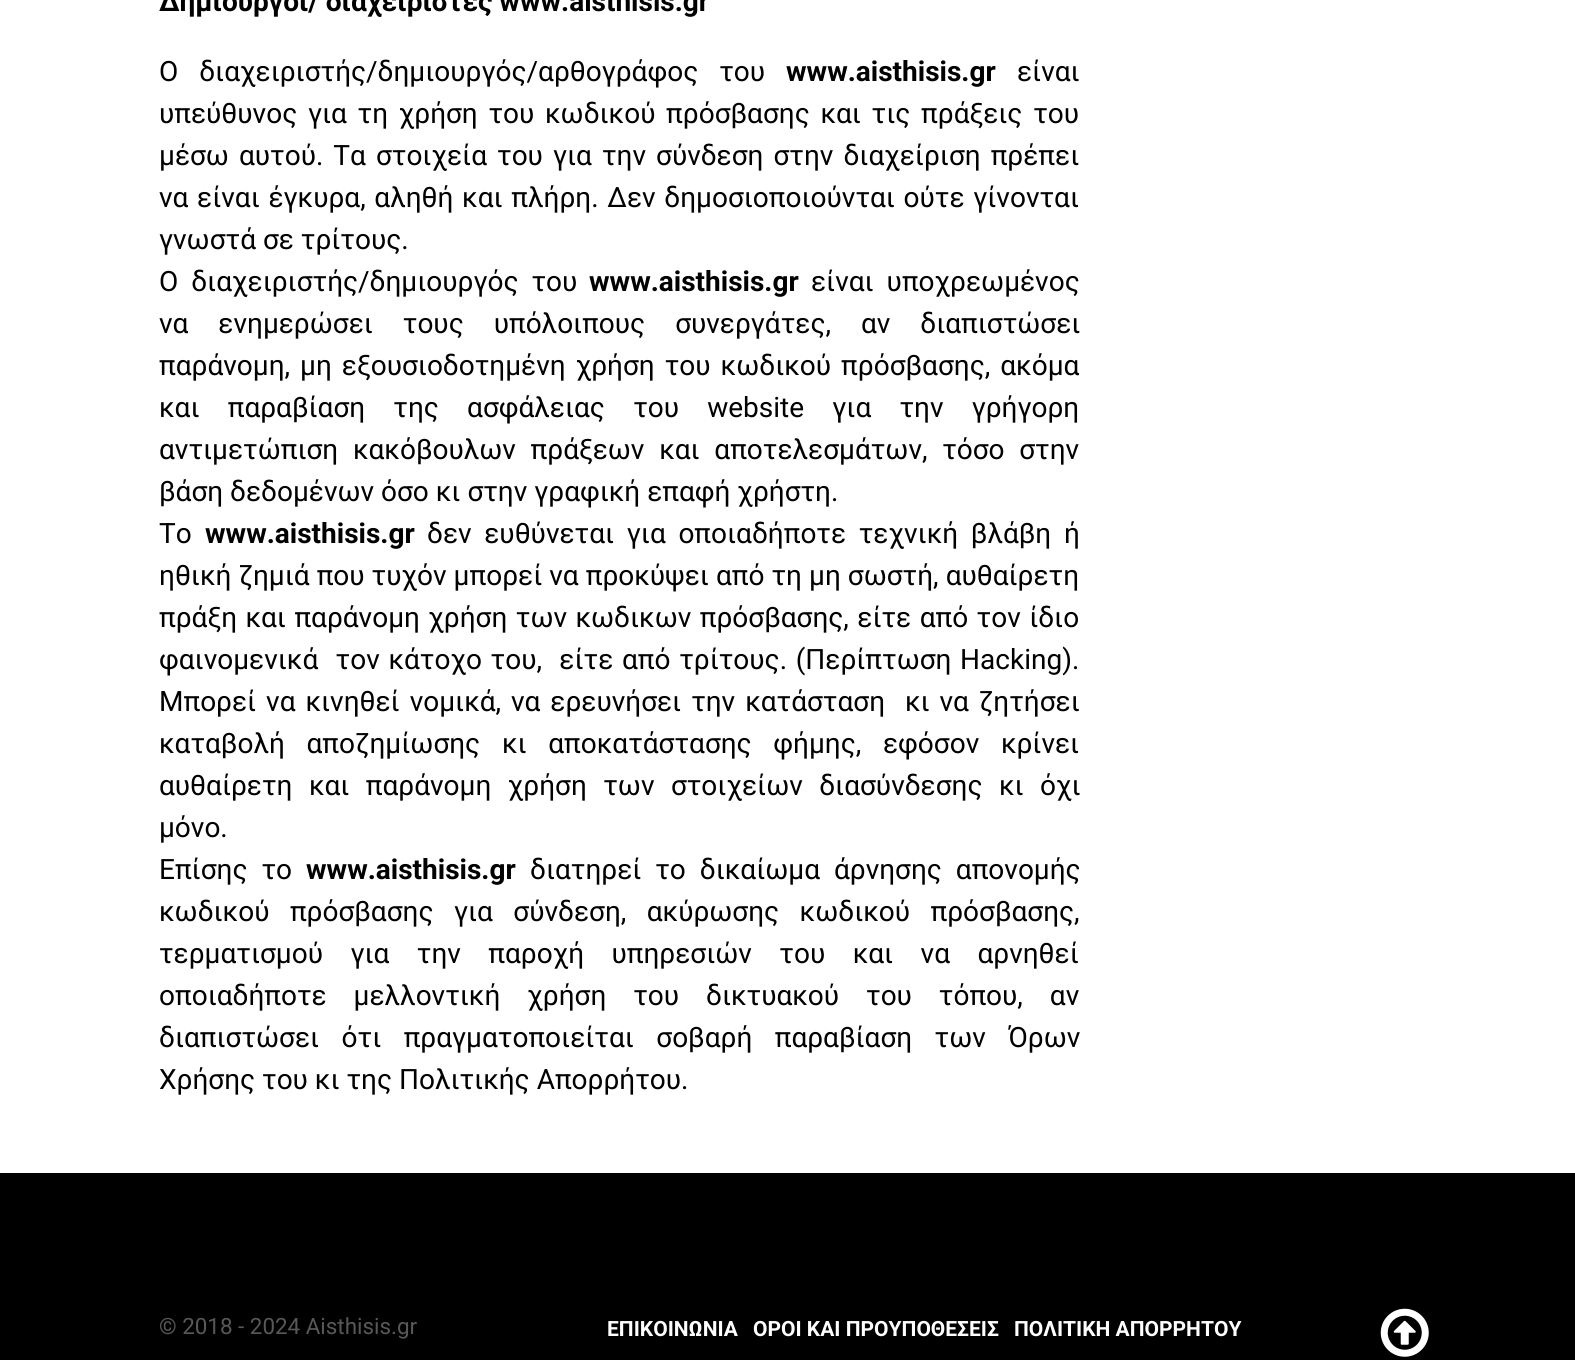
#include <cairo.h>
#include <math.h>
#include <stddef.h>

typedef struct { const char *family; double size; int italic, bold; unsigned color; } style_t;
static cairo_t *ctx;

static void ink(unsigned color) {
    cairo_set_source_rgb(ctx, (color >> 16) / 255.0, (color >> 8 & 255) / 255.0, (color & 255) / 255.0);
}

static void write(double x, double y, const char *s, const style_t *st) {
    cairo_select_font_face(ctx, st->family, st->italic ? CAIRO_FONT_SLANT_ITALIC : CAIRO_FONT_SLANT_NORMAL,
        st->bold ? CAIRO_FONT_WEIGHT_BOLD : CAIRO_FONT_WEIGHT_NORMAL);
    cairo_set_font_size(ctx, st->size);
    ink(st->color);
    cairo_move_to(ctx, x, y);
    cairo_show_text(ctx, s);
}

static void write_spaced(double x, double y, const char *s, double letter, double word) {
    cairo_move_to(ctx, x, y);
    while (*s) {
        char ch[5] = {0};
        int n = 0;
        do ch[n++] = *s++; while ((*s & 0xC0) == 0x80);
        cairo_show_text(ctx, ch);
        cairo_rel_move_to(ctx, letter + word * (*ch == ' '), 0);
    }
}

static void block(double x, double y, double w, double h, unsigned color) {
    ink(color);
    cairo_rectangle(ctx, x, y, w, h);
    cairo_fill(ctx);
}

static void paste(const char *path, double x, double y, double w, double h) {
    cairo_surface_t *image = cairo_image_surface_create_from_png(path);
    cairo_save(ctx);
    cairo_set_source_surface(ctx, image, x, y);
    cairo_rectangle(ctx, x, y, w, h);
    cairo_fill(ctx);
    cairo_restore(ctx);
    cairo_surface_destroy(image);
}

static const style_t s1 = {"Roboto", 28, 0, 1, 0x000000};
static const style_t s2 = {"Roboto", 28, 0, 0, 0x000000};
static const style_t s3 = {"Roboto", 22.4, 0, 0, 0x585858};
static const style_t s4 = {"Roboto", 21, 0, 1, 0xffffff};

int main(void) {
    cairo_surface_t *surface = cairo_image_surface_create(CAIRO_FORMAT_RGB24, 1575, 1360);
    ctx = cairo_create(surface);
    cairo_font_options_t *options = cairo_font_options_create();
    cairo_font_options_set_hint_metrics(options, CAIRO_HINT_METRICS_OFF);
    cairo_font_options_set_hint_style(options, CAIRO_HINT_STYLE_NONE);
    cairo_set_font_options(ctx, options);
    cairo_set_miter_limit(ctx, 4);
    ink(0xffffff);
    cairo_paint(ctx);
    write(159, 11, "Δημιουργοί/ διαχειριστές www.aisthisis.gr", &s1);
    cairo_select_font_face(ctx, "Roboto", CAIRO_FONT_SLANT_NORMAL, CAIRO_FONT_WEIGHT_NORMAL);
    write_spaced(159, 81, "Ο διαχειριστής/δημιουργός/αρθογράφος του", 0, 14);
    write(786, 81, "www.aisthisis.gr", &s1);
    write(1017, 81, "είναι", &s2);
    write_spaced(159, 123, "υπεύθυνος για τη χρήση του κωδικού πρόσβασης και τις πράξεις του", 0, 3.75);
    write_spaced(159, 165, "μέσω αυτού. Τα στοιχεία του για την σύνδεση στην διαχείριση πρέπει", 0, 3.1);
    write_spaced(159, 207, "να είναι έγκυρα, αληθή και πλήρη. Δεν δημοσιοποιούνται ούτε γίνονται", 0, 1.75);
    write(159, 249, "γνωστά σε τρίτους.", &s2);
    write_spaced(159, 291, "Ο διαχειριστής/δημιουργός του", 0, 6);
    write(589, 291, "www.aisthisis.gr", &s1);
    cairo_select_font_face(ctx, "Roboto", CAIRO_FONT_SLANT_NORMAL, CAIRO_FONT_WEIGHT_NORMAL);
    write_spaced(811, 291, "είναι υποχρεωμένος", 0, 6);
    write_spaced(159, 333, "να ενημερώσει τους υπόλοιπους συνεργάτες, αν διαπιστώσει", 0, 23);
    write_spaced(159, 375, "παράνομη, μη εξουσιοδοτημένη χρήση του κωδικού πρόσβασης, ακόμα", 0, 3.1);
    write_spaced(159, 417, "και παραβίαση της ασφάλειας του website για την γρήγορη", 0, 21.25);
    write_spaced(159, 459, "αντιμετώπιση κακόβουλων πράξεων και αποτελεσμάτων, τόσο στην", 0, 7.75);
    write(159, 501, "βάση δεδομένων όσο κι στην γραφική επαφή χρήστη.", &s2);
    write(159, 543, "To", &s2);
    write(205, 543, "www.aisthisis.gr", &s1);
    cairo_select_font_face(ctx, "Roboto", CAIRO_FONT_SLANT_NORMAL, CAIRO_FONT_WEIGHT_NORMAL);
    write_spaced(427, 543, "δεν ευθύνεται για οποιαδήποτε τεχνική βλάβη ή", 0, 5.75);
    write_spaced(159, 585, "ηθική ζημιά που τυχόν μπορεί να προκύψει από τη μη σωστή, αυθαίρετη", 0, 0.1);
    write_spaced(159, 627, "πράξη και παράνομη χρήση των κωδικων πρόσβασης, είτε από τον ίδιο", 0, 1.5);
    write_spaced(159, 669, "φαινομενικά  τον κάτοχο του,  είτε από τρίτους. (Περίπτωση Hacking).", 0, 1.75);
    write_spaced(159, 711, "Mπορεί να κινηθεί νομικά, να ερευνήσει την κατάσταση  κι να ζητήσει", 0, 3);
    write_spaced(159, 753, "καταβολή αποζημίωσης κι αποκατάστασης φήμης, εφόσον κρίνει", 0, 14.75);
    write_spaced(159, 795, "αυθαίρετη και παράνομη χρήση των στοιχείων διασύνδεσης κι όχι", 0, 9.5);
    write(159, 837, "μόνο.", &s2);
    write_spaced(159, 879, "Επίσης το", 0, 7);
    write(306, 879, "www.aisthisis.gr", &s1);
    cairo_select_font_face(ctx, "Roboto", CAIRO_FONT_SLANT_NORMAL, CAIRO_FONT_WEIGHT_NORMAL);
    write_spaced(530, 879, "διατηρεί το δικαίωμα άρνησης απονομής", 0, 7);
    write_spaced(159, 921, "κωδικού πρόσβασης για σύνδεση, ακύρωσης κωδικού πρόσβασης,", 0, 13.5);
    write_spaced(159, 963, "τερματισμού για την παροχή υπηρεσιών του και να αρνηθεί", 0, 20.5);
    write_spaced(159, 1005, "οποιαδήποτε μελλοντική χρήση του δικτυακού του τόπου, αν", 0, 20);
    write_spaced(159, 1047, "διαπιστώσει ότι πραγματοποιείται σοβαρή παραβίαση των Όρων", 0, 15.5);
    write(159, 1089, "Χρήσης του κι της Πολιτικής Απορρήτου.", &s2);
    block(0, 1173, 1575, 187, 0x000000);
    write(159, 1334, "© 2018 - 2024 Aisthisis.gr", &s3);
    write(607, 1336, "ΕΠΙΚΟΙΝΩΝΙΑ", &s4);
    write(753, 1336, "ΟΡΟΙ ΚΑΙ ΠΡΟΥΠΟΘΕΣΕΙΣ", &s4);
    write(1014, 1336, "ΠΟΛΙΤΙΚΗ ΑΠΟΡΡΗΤΟΥ", &s4);
    paste("pic1.png", 1380, 1308, 49, 49);
    cairo_surface_write_to_png(surface, "screenshot.png");
    cairo_font_options_destroy(options);
    cairo_destroy(ctx);
    cairo_surface_destroy(surface);
    return 0;
}
